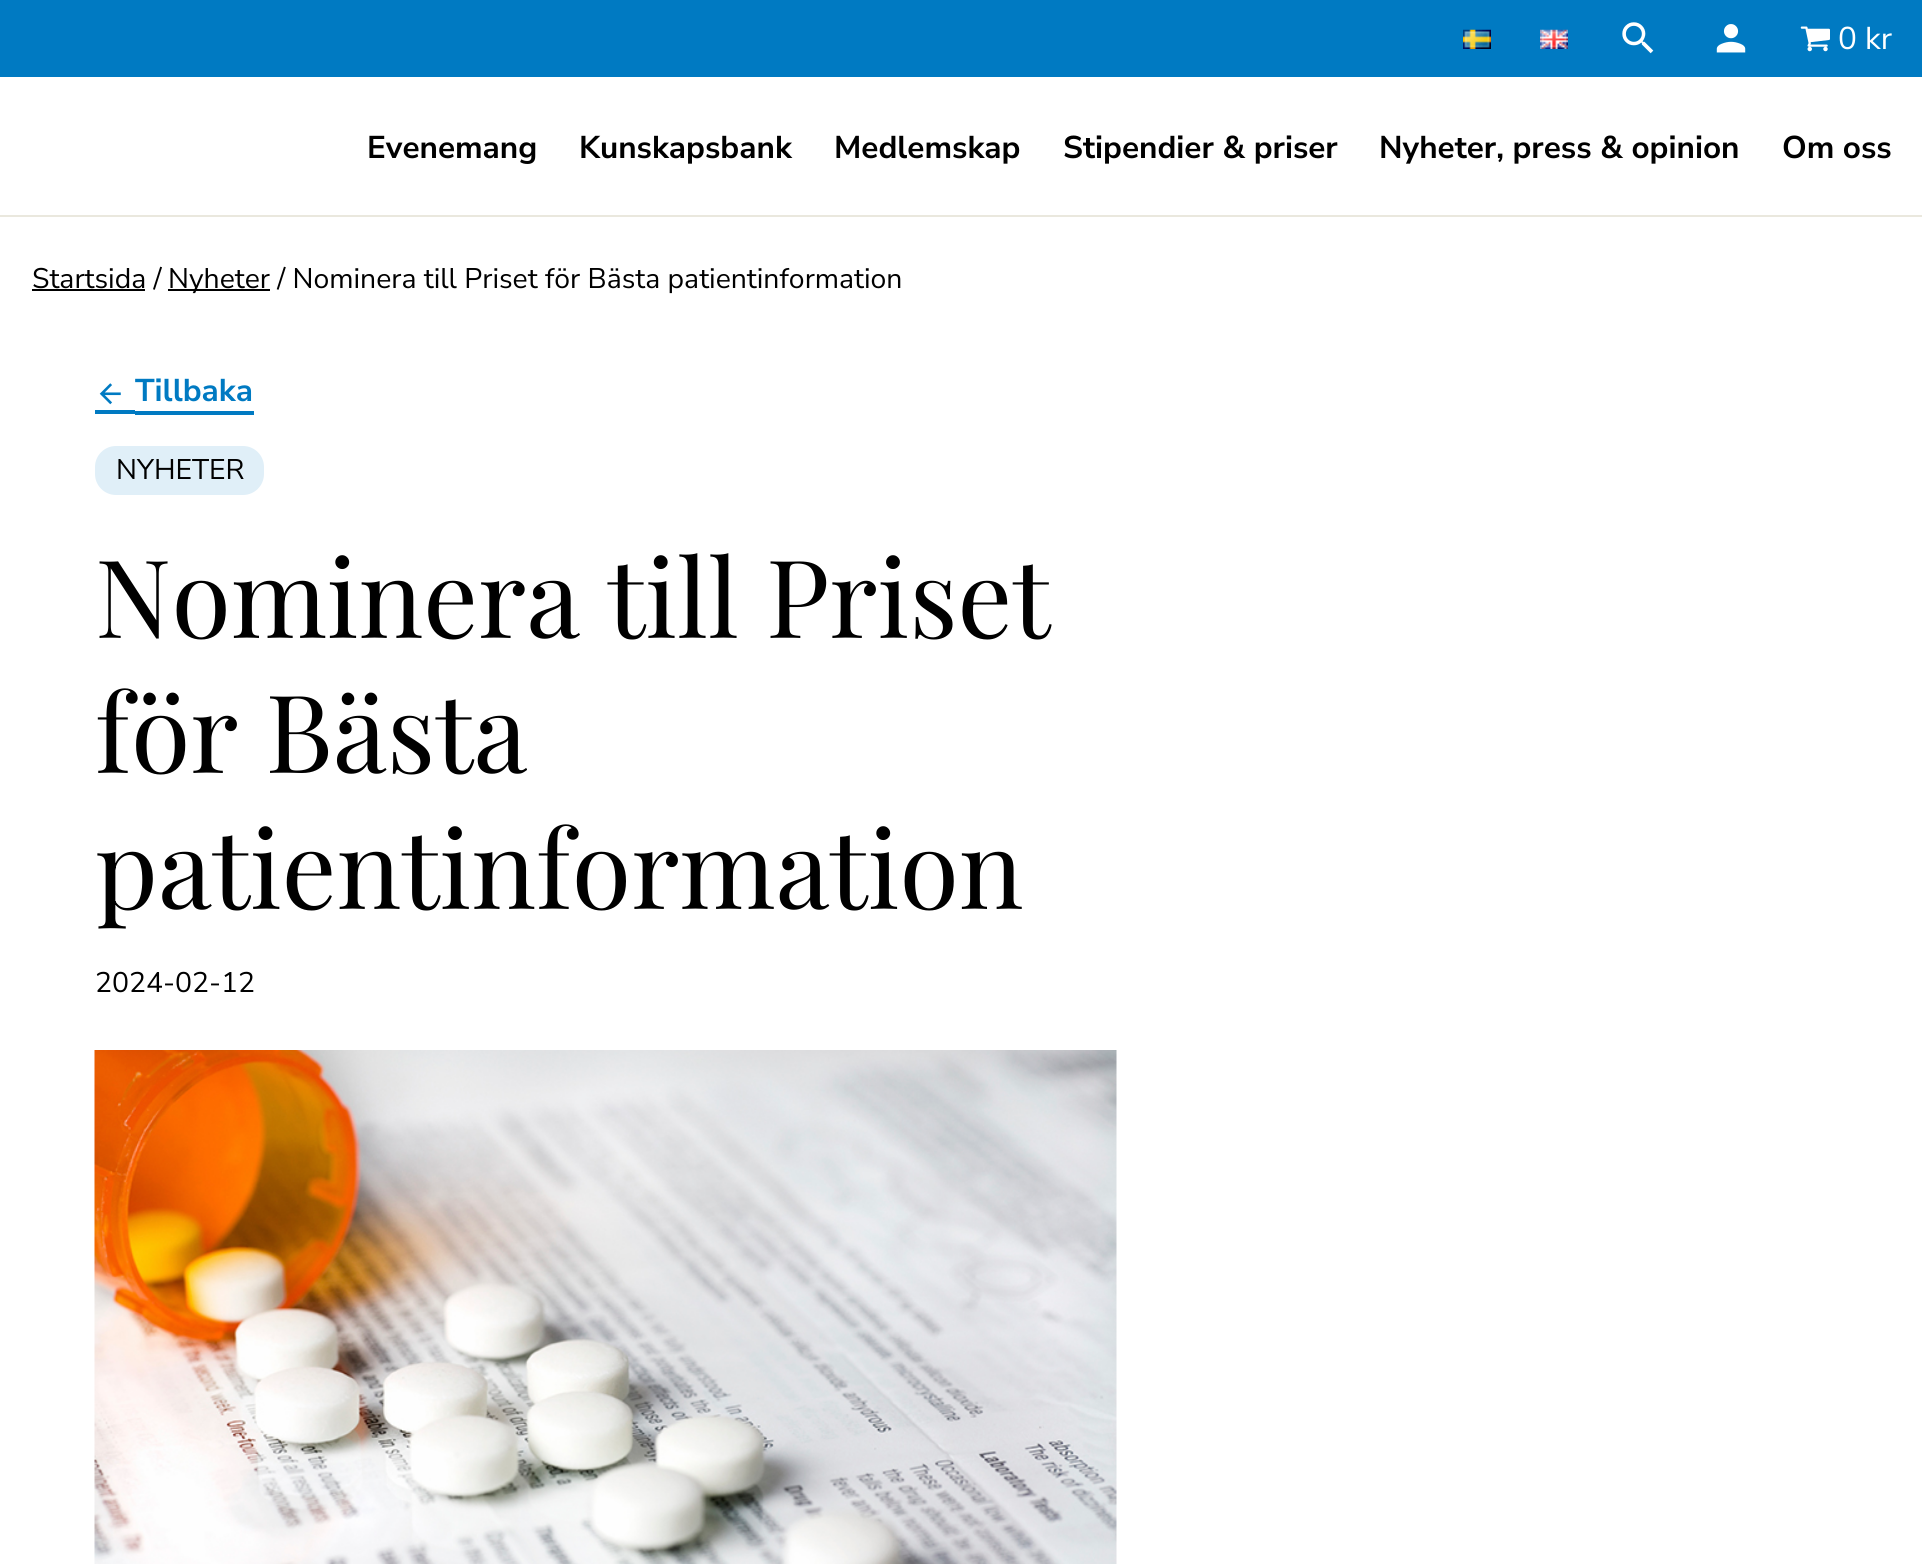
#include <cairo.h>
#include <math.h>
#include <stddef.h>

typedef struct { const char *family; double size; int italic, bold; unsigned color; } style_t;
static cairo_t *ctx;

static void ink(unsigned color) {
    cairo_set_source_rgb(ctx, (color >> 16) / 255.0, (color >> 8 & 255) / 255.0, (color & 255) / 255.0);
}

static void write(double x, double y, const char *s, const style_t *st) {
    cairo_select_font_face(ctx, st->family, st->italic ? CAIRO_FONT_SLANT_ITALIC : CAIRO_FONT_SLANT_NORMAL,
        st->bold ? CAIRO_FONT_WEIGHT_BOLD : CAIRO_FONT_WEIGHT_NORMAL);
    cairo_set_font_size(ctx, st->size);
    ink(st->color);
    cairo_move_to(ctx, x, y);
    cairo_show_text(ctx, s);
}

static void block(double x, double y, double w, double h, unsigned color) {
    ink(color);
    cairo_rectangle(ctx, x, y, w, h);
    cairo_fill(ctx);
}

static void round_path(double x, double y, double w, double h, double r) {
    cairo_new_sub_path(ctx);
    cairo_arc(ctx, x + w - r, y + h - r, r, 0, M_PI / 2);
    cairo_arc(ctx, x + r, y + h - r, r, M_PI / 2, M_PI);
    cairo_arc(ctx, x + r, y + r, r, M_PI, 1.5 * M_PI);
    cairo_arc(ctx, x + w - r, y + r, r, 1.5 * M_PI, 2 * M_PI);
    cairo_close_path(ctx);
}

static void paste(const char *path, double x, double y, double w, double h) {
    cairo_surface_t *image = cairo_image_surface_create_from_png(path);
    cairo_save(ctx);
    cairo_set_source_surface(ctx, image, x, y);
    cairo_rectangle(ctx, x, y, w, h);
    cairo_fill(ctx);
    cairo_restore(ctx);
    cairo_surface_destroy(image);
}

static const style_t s1 = {"Nunito Sans", 31.5, 0, 0, 0xffffff};
static const style_t s2 = {"Nunito Sans", 31.5, 0, 1, 0x000000};
static const style_t s3 = {"Nunito Sans", 28.35, 0, 0, 0x000000};
static const style_t s4 = {"Nunito Sans", 31.5, 0, 1, 0x007ac2};
static const style_t s5 = {"Playfair Display", 108.25, 0, 0, 0x000000};

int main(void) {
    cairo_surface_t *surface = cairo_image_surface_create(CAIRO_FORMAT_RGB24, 1922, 1564);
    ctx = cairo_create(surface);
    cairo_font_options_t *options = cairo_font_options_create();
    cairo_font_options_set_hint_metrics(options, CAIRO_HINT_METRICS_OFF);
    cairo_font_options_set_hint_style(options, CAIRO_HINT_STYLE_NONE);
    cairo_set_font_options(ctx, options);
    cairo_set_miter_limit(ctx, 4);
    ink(0xffffff);
    cairo_paint(ctx);
    block(0, 0, 1922, 77, 0x007ac2);
    paste("pic1.png", 1463, 29, 28, 20);
    paste("pic2.png", 1540, 29, 28, 20);
    paste("pic3.png", 1622, 22, 32, 32);
    paste("pic4.png", 1716, 24, 30, 29);
    paste("pic5.png", 1800, 26, 30, 26);
    write(1838, 49, "0 kr", &s1);
    block(0, 215, 1922, 2, 0xeae8de);
    write(367, 158, "Evenemang", &s2);
    write(579, 158, "Kunskapsbank", &s2);
    write(834, 158, "Medlemskap", &s2);
    write(1063, 158, "Stipendier & priser", &s2);
    write(1379, 158, "Nyheter, press & opinion", &s2);
    write(1782, 158, "Om oss", &s2);
    block(32, 289, 113, 2, 0x000000);
    write(32, 288, "Startsida /", &s3);
    block(168, 289, 102, 2, 0x000000);
    write(168, 288, "Nyheter / Nominera till Priset för Bästa patientinformation", &s3);
    paste("pic6.png", 99, 383, 22, 22);
    write(135, 401, "Tillbaka", &s4);
    block(95, 410, 40, 4, 0x007ac2);
    block(135, 411, 119, 4, 0x007ac2);
    ink(0xe0eff8);
    round_path(95, 446, 169, 49, 21);
    cairo_fill(ctx);
    write(116, 479, "NYHETER", &s3);
    write(95, 638, "Nominera till Priset", &s5);
    write(95, 773, "för Bästa", &s5);
    write(95, 909, "patientinformation", &s5);
    write(95, 992, "2024-02-12", &s3);
    paste("pic7.png", 94, 1050, 1023, 514);
    cairo_surface_write_to_png(surface, "screenshot.png");
    cairo_font_options_destroy(options);
    cairo_destroy(ctx);
    cairo_surface_destroy(surface);
    return 0;
}
